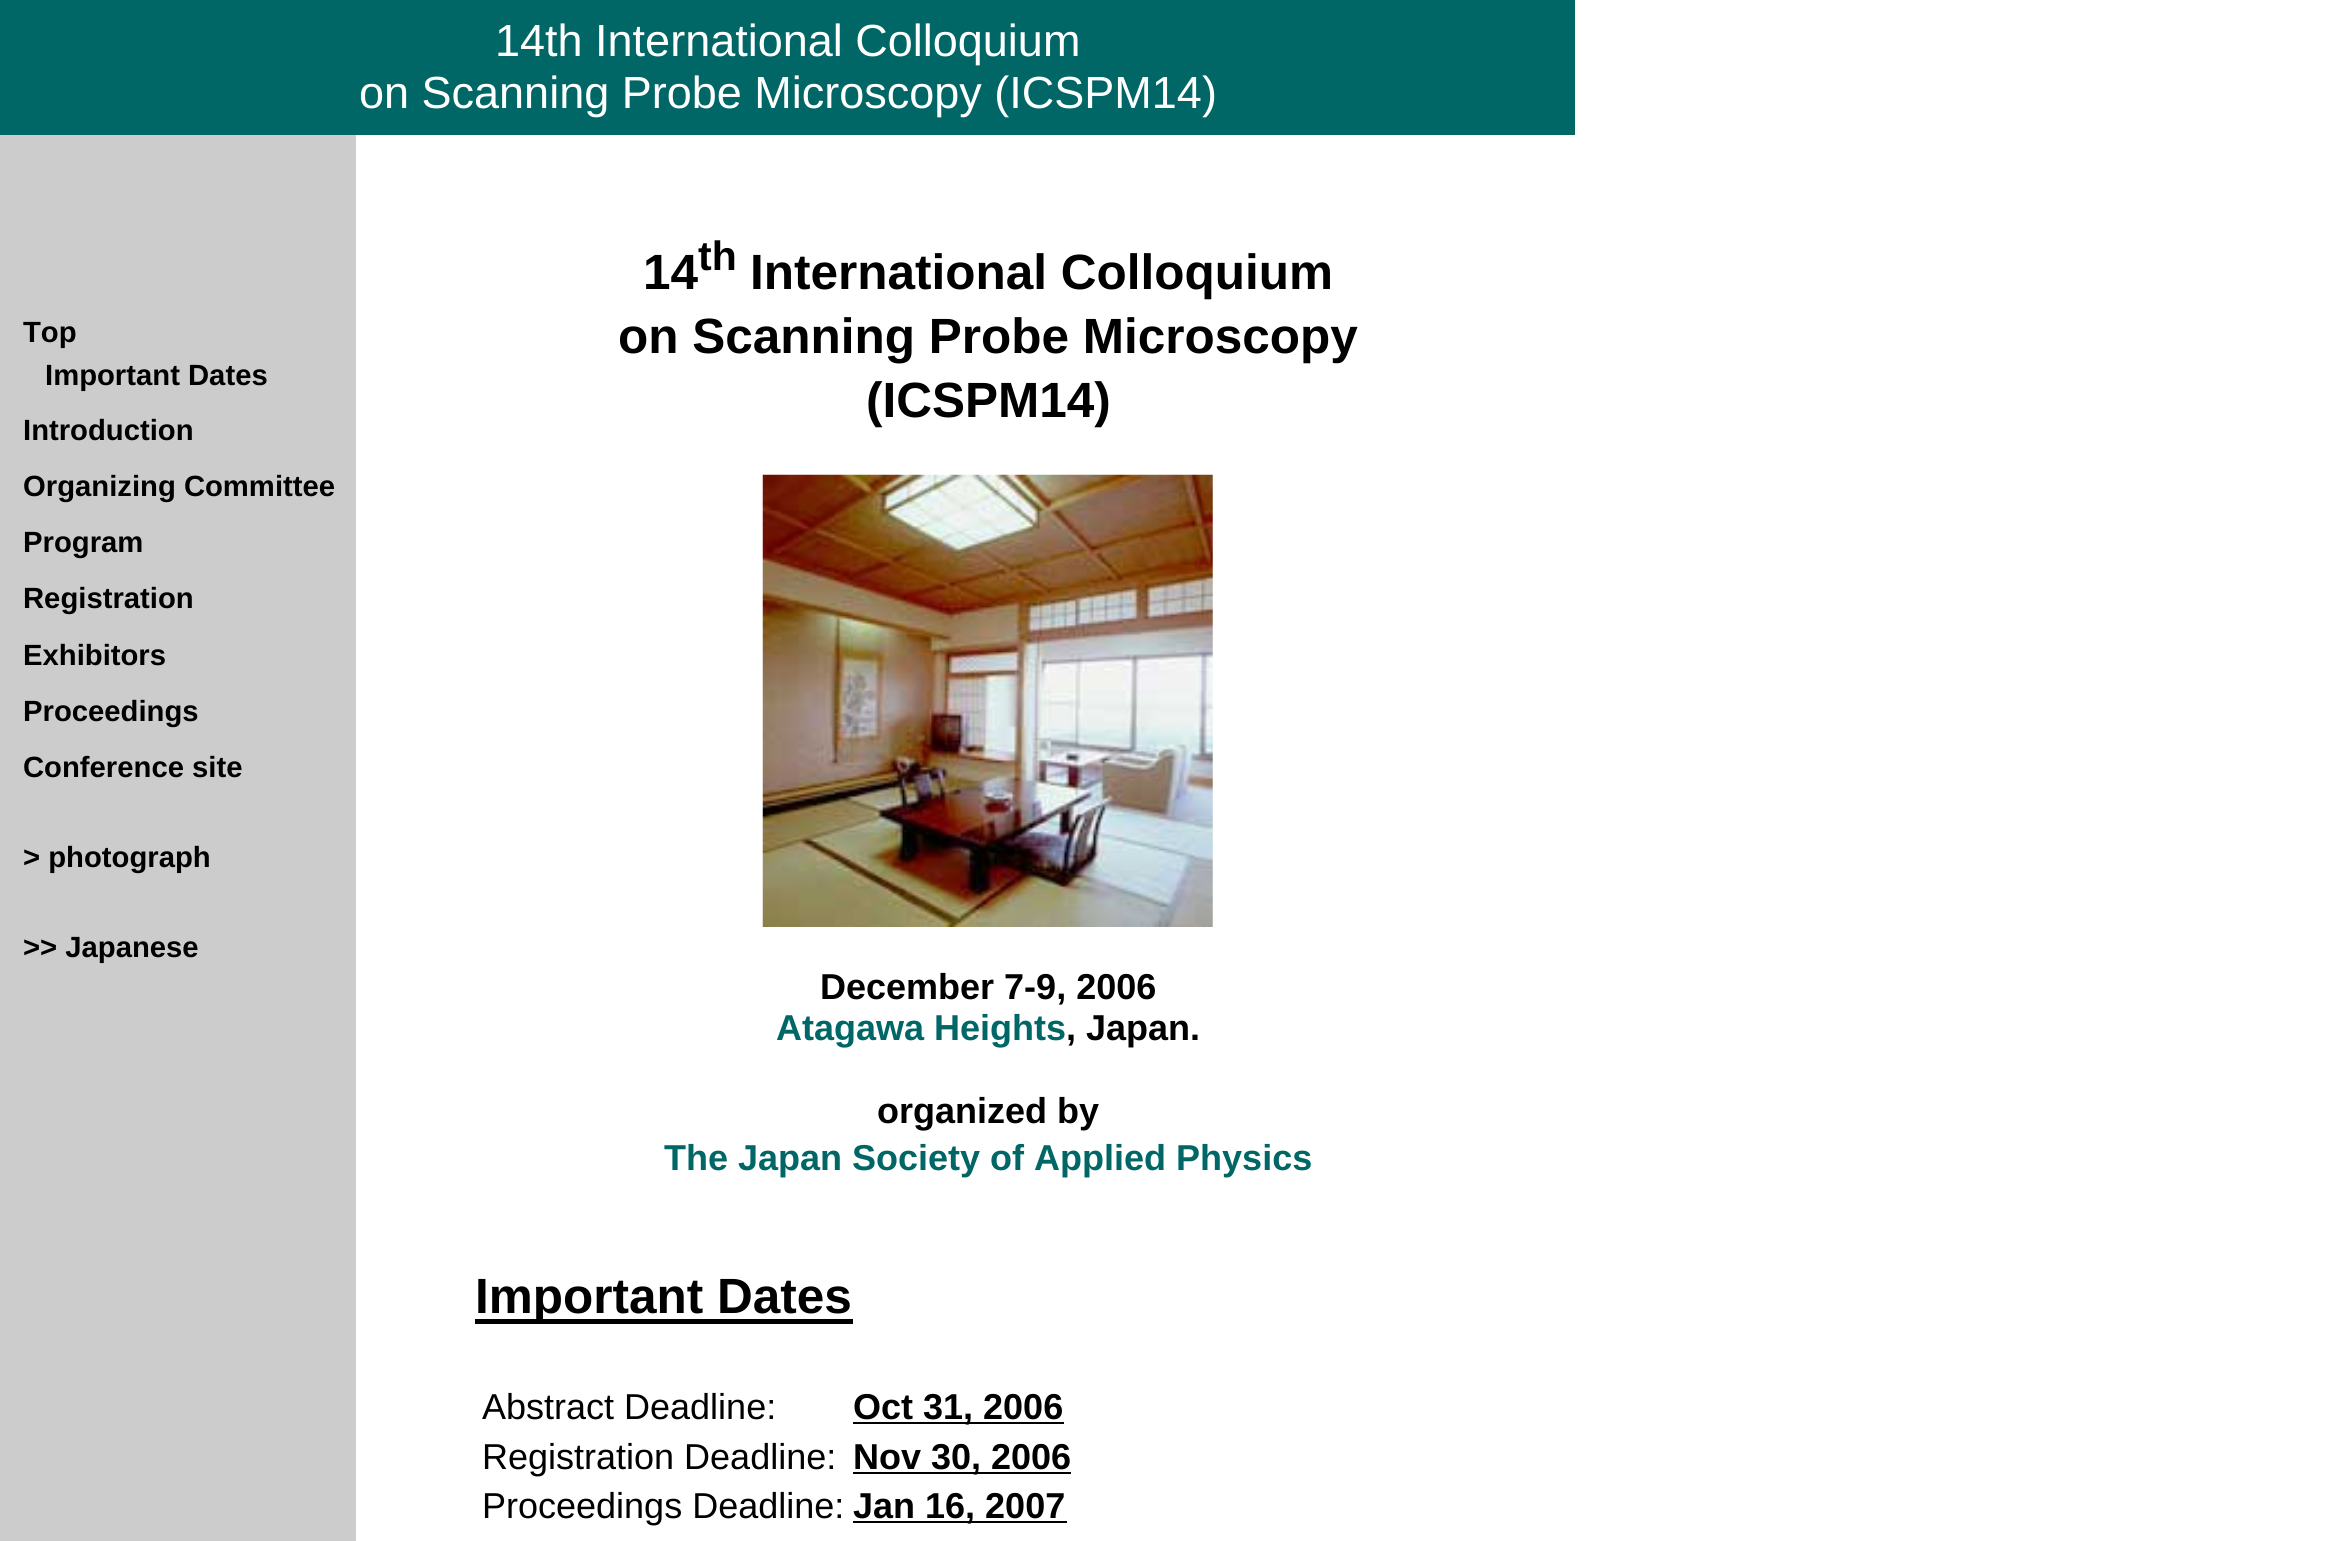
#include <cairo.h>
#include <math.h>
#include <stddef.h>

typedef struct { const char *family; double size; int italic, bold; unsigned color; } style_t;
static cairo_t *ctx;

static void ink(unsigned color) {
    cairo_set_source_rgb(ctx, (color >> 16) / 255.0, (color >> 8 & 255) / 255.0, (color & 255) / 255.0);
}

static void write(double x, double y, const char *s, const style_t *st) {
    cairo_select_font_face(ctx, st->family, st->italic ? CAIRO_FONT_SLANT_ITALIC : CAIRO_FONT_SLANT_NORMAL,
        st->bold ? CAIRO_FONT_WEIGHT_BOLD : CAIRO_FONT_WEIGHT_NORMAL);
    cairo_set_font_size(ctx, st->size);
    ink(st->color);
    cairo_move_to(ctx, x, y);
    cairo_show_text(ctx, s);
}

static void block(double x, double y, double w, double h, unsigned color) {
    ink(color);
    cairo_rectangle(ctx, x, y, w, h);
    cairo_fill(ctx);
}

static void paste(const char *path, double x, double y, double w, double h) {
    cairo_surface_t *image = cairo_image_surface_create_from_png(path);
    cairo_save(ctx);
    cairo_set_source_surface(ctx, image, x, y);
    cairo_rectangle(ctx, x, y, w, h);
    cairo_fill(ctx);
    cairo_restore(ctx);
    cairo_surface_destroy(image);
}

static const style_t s1 = {"Liberation Sans", 45, 0, 0, 0xffffff};
static const style_t s2 = {"Liberation Sans", 29.25, 0, 1, 0x000000};
static const style_t s3 = {"Liberation Sans", 49.5, 0, 1, 0x000000};
static const style_t s4 = {"Liberation Sans", 41, 0, 1, 0x000000};
static const style_t s5 = {"Liberation Sans", 36, 0, 1, 0x000000};
static const style_t s6 = {"Liberation Sans", 36, 0, 1, 0x006666};
static const style_t s7 = {"Liberation Sans", 36, 0, 0, 0x000000};

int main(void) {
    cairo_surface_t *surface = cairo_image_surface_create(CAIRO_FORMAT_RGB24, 2339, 1541);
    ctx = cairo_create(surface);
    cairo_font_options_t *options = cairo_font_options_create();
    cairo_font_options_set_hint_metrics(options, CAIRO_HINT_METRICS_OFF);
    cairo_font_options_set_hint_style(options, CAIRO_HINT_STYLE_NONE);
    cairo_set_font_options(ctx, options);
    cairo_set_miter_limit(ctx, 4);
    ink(0xffffff);
    cairo_paint(ctx);
    block(0, 0, 1575, 135, 0x006666);
    write(495, 56, "14th International Colloquium", &s1);
    write(359, 108, "on Scanning Probe Microscopy (ICSPM14)", &s1);
    block(0, 135, 356, 1406, 0xcccccc);
    write(23, 342, "Top", &s2);
    write(45, 385, "Important Dates", &s2);
    write(23, 440, "Introduction", &s2);
    write(23, 496, "Organizing Committee", &s2);
    write(23, 552, "Program", &s2);
    write(23, 608, "Registration", &s2);
    write(23, 665, "Exhibitors", &s2);
    write(23, 721, "Proceedings", &s2);
    write(23, 777, "Conference site", &s2);
    write(23, 867, "> photograph", &s2);
    write(23, 957, ">> Japanese", &s2);
    write(643, 289, "14", &s3);
    write(698, 270, "th", &s4);
    write(750, 289, "International Colloquium", &s3);
    write(618, 353, "on Scanning Probe Microscopy", &s3);
    write(866, 417, "(ICSPM14)", &s3);
    paste("pic1.png", 762, 474, 451, 453);
    write(820, 999, "December 7-9, 2006", &s5);
    write(776, 1040, "Atagawa Heights", &s6);
    write(1066, 1040, ", Japan.", &s5);
    write(877, 1123, "organized by", &s5);
    write(664, 1170, "The Japan Society of Applied Physics", &s6);
    block(475, 1319, 378, 5, 0x000000);
    write(475, 1313, "Important Dates", &s3);
    write(482, 1419, "Abstract Deadline:", &s7);
    block(853, 1422, 211, 2, 0x000000);
    write(853, 1419, "Oct 31, 2006", &s5);
    write(482, 1469, "Registration Deadline:", &s7);
    block(853, 1472, 218, 2, 0x000000);
    write(853, 1469, "Nov 30, 2006", &s5);
    write(482, 1518, "Proceedings Deadline:", &s7);
    block(853, 1521, 214, 2, 0x000000);
    write(853, 1518, "Jan 16, 2007", &s5);
    cairo_surface_write_to_png(surface, "screenshot.png");
    cairo_font_options_destroy(options);
    cairo_destroy(ctx);
    cairo_surface_destroy(surface);
    return 0;
}
